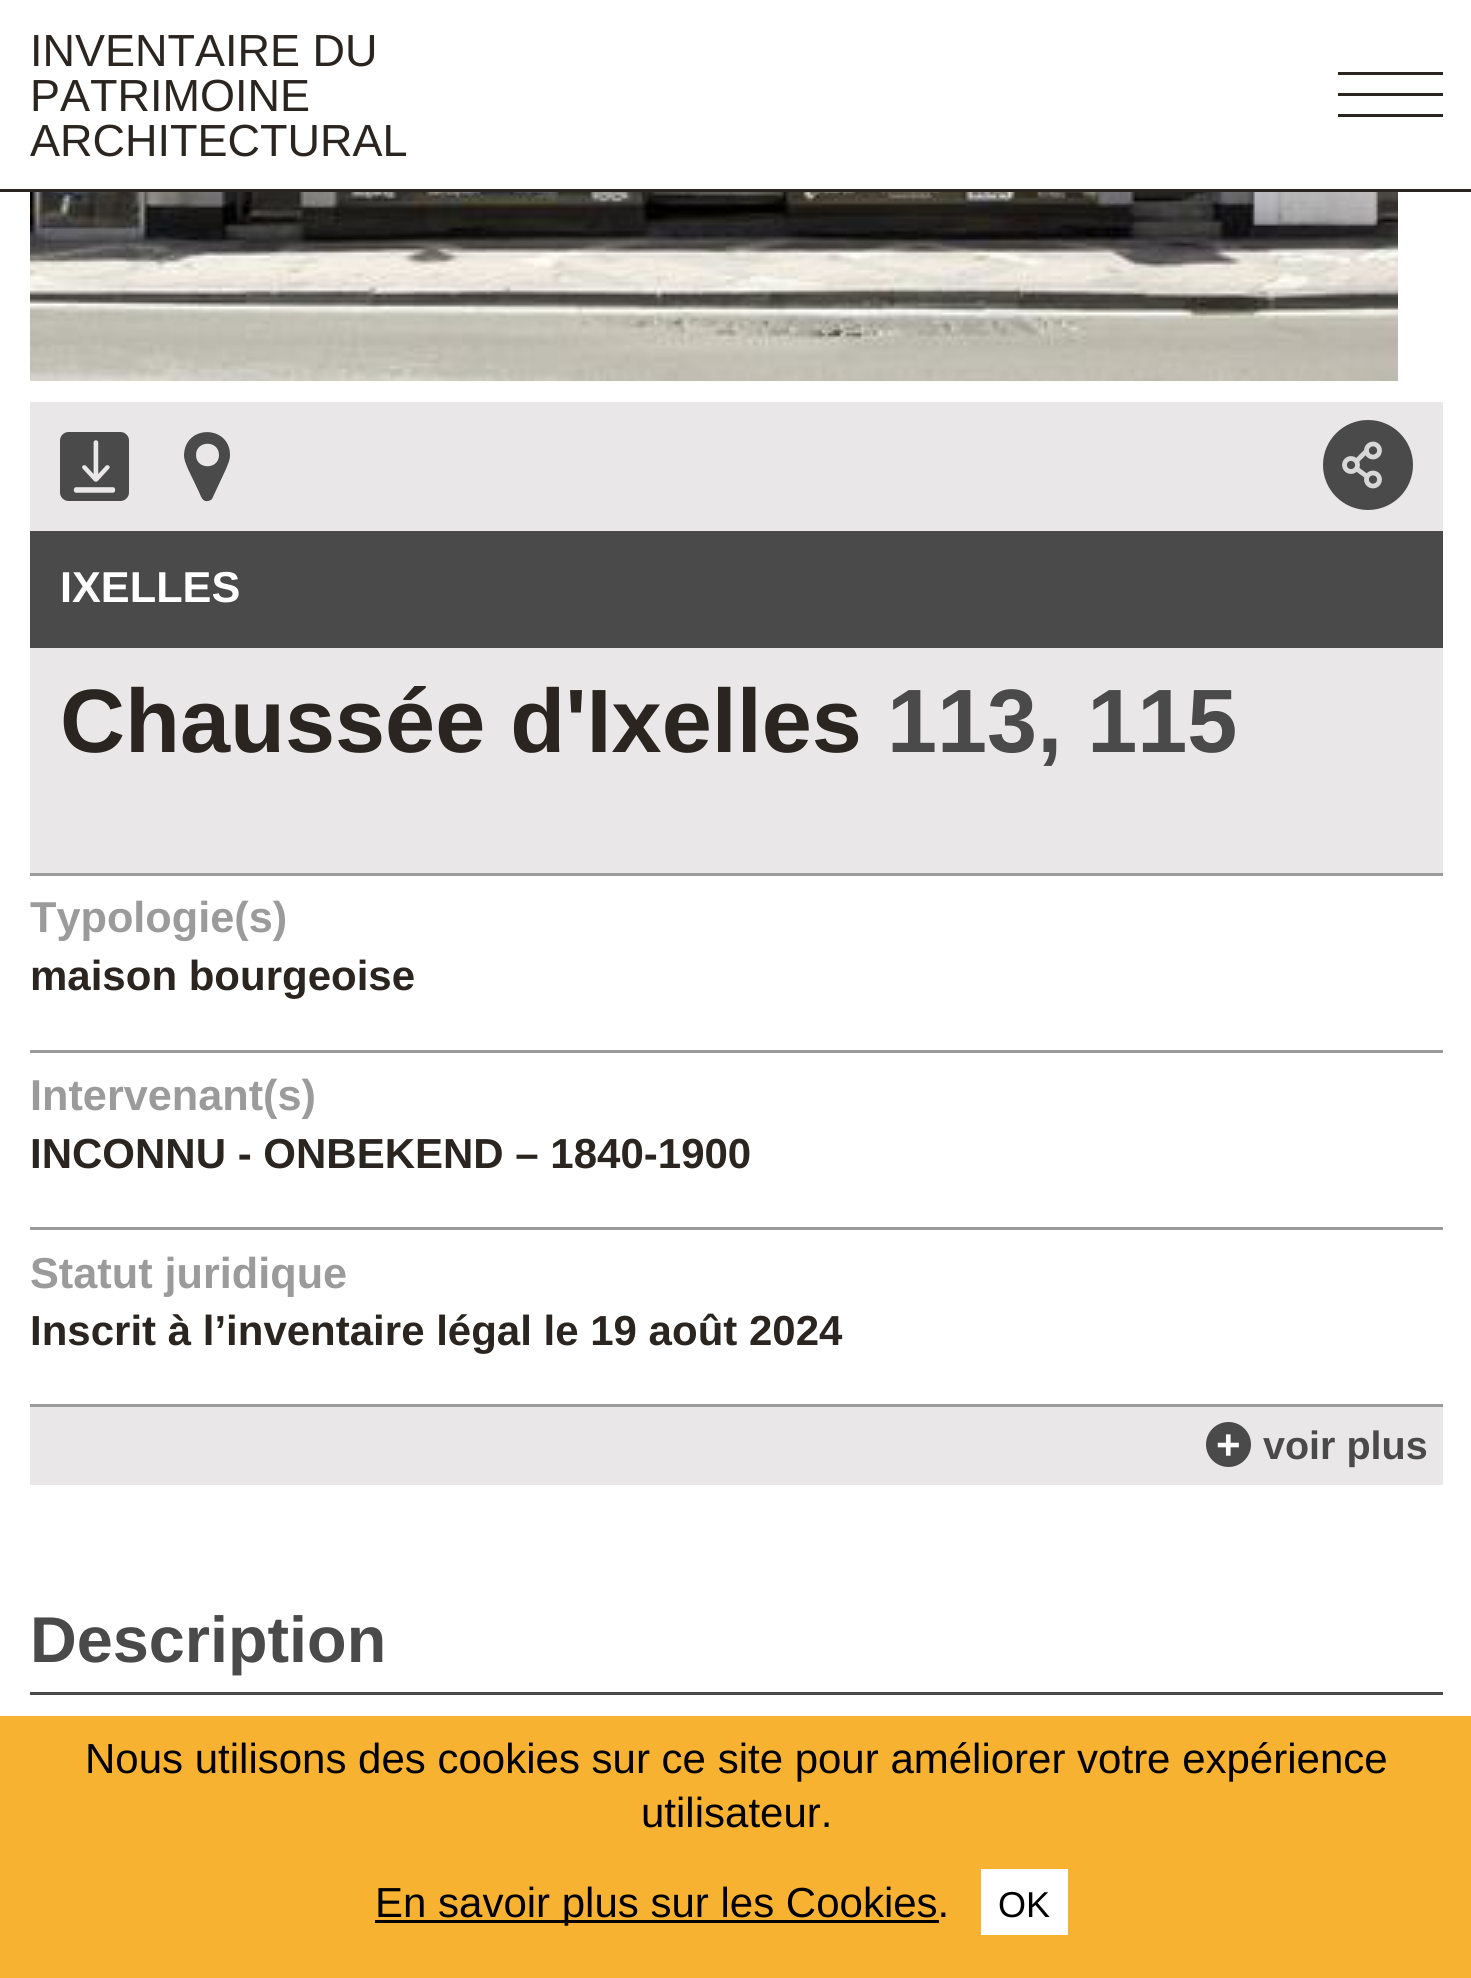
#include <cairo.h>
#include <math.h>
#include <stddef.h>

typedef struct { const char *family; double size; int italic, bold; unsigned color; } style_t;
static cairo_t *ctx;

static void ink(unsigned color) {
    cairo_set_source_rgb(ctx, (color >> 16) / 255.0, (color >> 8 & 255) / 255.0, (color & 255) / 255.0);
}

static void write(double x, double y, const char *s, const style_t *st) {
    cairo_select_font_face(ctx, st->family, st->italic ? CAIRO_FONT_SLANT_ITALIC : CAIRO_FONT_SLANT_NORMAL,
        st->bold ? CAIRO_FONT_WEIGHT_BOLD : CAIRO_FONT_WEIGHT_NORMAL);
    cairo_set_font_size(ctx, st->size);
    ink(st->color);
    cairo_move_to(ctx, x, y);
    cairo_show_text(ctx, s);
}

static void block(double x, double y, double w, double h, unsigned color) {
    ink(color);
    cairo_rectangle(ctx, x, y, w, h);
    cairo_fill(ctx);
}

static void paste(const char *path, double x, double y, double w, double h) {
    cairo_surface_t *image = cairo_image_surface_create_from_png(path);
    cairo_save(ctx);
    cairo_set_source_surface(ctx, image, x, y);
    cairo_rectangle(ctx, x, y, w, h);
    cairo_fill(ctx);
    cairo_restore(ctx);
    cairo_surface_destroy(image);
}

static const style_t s1 = {"Liberation Sans", 45, 0, 0, 0x2a2520};
static const style_t s2 = {"Liberation Sans", 43.25, 0, 1, 0xffffff};
static const style_t s3 = {"Liberation Sans", 90, 0, 1, 0x2a2520};
static const style_t s4 = {"Liberation Sans", 90, 0, 1, 0x4a4a4a};
static const style_t s5 = {"Liberation Sans", 43.25, 0, 1, 0x9b9b9b};
static const style_t s6 = {"Liberation Sans", 42, 0, 1, 0x2a2520};
static const style_t s7 = {"Liberation Sans", 42, 0, 1, 0xffffff};
static const style_t s8 = {"Liberation Sans", 39.5, 0, 1, 0x4a4a4a};
static const style_t s9 = {"Liberation Sans", 64.75, 0, 1, 0x4a4a4a};
static const style_t s10 = {"Liberation Sans", 42, 0, 0, 0x000000};
static const style_t s11 = {"Liberation Sans", 36, 0, 0, 0x000000};

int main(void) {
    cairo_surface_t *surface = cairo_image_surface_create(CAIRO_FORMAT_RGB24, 1471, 1978);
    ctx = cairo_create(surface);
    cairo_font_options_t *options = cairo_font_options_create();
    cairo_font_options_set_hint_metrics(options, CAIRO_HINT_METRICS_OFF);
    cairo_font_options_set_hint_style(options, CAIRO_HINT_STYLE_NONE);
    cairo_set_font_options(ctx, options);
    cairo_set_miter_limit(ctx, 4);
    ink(0xffffff);
    cairo_paint(ctx);
    block(0, 189, 1471, 3, 0x2a2520);
    write(30, 66, "INVENTAIRE DU", &s1);
    write(30, 111, "PATRIMOINE", &s1);
    write(30, 156, "ARCHITECTURAL", &s1);
    block(1338, 93, 105, 3, 0x2a2520);
    block(1338, 72, 105, 3, 0x2a2520);
    block(1338, 114, 105, 3, 0x2a2520);
    paste("pic1.png", 30, 192, 1368, 189);
    block(30, 402, 1413, 471, 0xe9e7e7);
    block(30, 873, 1413, 3, 0x9b9b9b);
    paste("pic2.png", 60, 432, 69, 69);
    ink(0x4a4a4a);
    cairo_set_fill_rule(ctx, CAIRO_FILL_RULE_EVEN_ODD);
    cairo_new_path(ctx);
    cairo_move_to(ctx, 219, 455);
    cairo_curve_to(ctx, 219, 440, 196, 440, 196, 455);
    cairo_curve_to(ctx, 196, 470, 219, 470, 219, 455);
    cairo_close_path(ctx);
    cairo_move_to(ctx, 230, 455);
    cairo_curve_to(ctx, 230, 460, 228, 464, 226, 469);
    cairo_line_to(ctx, 212, 499);
    cairo_curve_to(ctx, 211, 500, 209, 501, 208, 501);
    cairo_curve_to(ctx, 202, 502, 201, 496, 199, 492);
    cairo_line_to(ctx, 188, 469);
    cairo_curve_to(ctx, 186, 464, 184, 460, 184, 455);
    cairo_curve_to(ctx, 185, 424, 230, 425, 230, 455);
    cairo_close_path(ctx);
    cairo_fill(ctx);
    cairo_arc(ctx, 1368, 465, 45, 0, 2 * M_PI);
    cairo_fill(ctx);
    cairo_arc(ctx, 1373, 450.5, 6.5, 0, 2 * M_PI);
    ink(0xd8d8d8);
    cairo_set_line_width(ctx, 4.8);
    cairo_stroke(ctx);
    cairo_arc(ctx, 1351, 465, 6.5, 0, 2 * M_PI);
    cairo_stroke(ctx);
    cairo_arc(ctx, 1373, 479.5, 6.5, 0, 2 * M_PI);
    cairo_stroke(ctx);
    cairo_new_path(ctx);
    cairo_move_to(ctx, 1355.5, 468);
    cairo_line_to(ctx, 1367, 476.5);
    cairo_move_to(ctx, 1367, 450.5);
    cairo_line_to(ctx, 1355.5, 462);
    cairo_stroke(ctx);
    block(30, 531, 1413, 117, 0x4a4a4a);
    write(60, 602, "IXELLES", &s2);
    write(60, 752, "Chaussée d'Ixelles", &s3);
    write(887, 752, "113, 115", &s4);
    block(30, 1050, 1413, 3, 0x9b9b9b);
    write(30, 932, "Typologie(s)", &s5);
    write(30, 990, "maison bourgeoise", &s6);
    block(30, 1227, 1413, 3, 0x9b9b9b);
    write(30, 1110, "Intervenant(s)", &s5);
    write(30, 1168, "INCONNU - ONBEKEND – 1840-1900", &s6);
    block(30, 1404, 1413, 3, 0x9b9b9b);
    write(30, 1288, "Statut juridique", &s5);
    write(30, 1345, "Inscrit à l’inventaire légal le 19 août 2024", &s6);
    block(30, 1407, 1413, 78, 0xe9e7e7);
    ink(0x4a4a4a);
    cairo_new_path(ctx);
    cairo_arc(ctx, 1228.5, 1444.5, 22.5, 0, 2 * M_PI);
    cairo_fill(ctx);
    write(1216, 1459, "+", &s7);
    write(1263, 1459, "voir plus", &s8);
    block(30, 1692, 1413, 3, 0x4a4a4a);
    write(30, 1662, "Description", &s9);
    block(0, 1716, 1471, 262, 0xf8b232);
    write(85, 1773, "Nous utilisons des cookies sur ce site pour améliorer votre expérience", &s10);
    write(641, 1827, "utilisateur.", &s10);
    block(375, 1920, 564, 3, 0x000000);
    write(375, 1917, "En savoir plus sur les Cookies.", &s10);
    block(981, 1869, 87, 66, 0xffffff);
    write(998, 1917, "OK", &s11);
    cairo_surface_write_to_png(surface, "screenshot.png");
    cairo_font_options_destroy(options);
    cairo_destroy(ctx);
    cairo_surface_destroy(surface);
    return 0;
}
